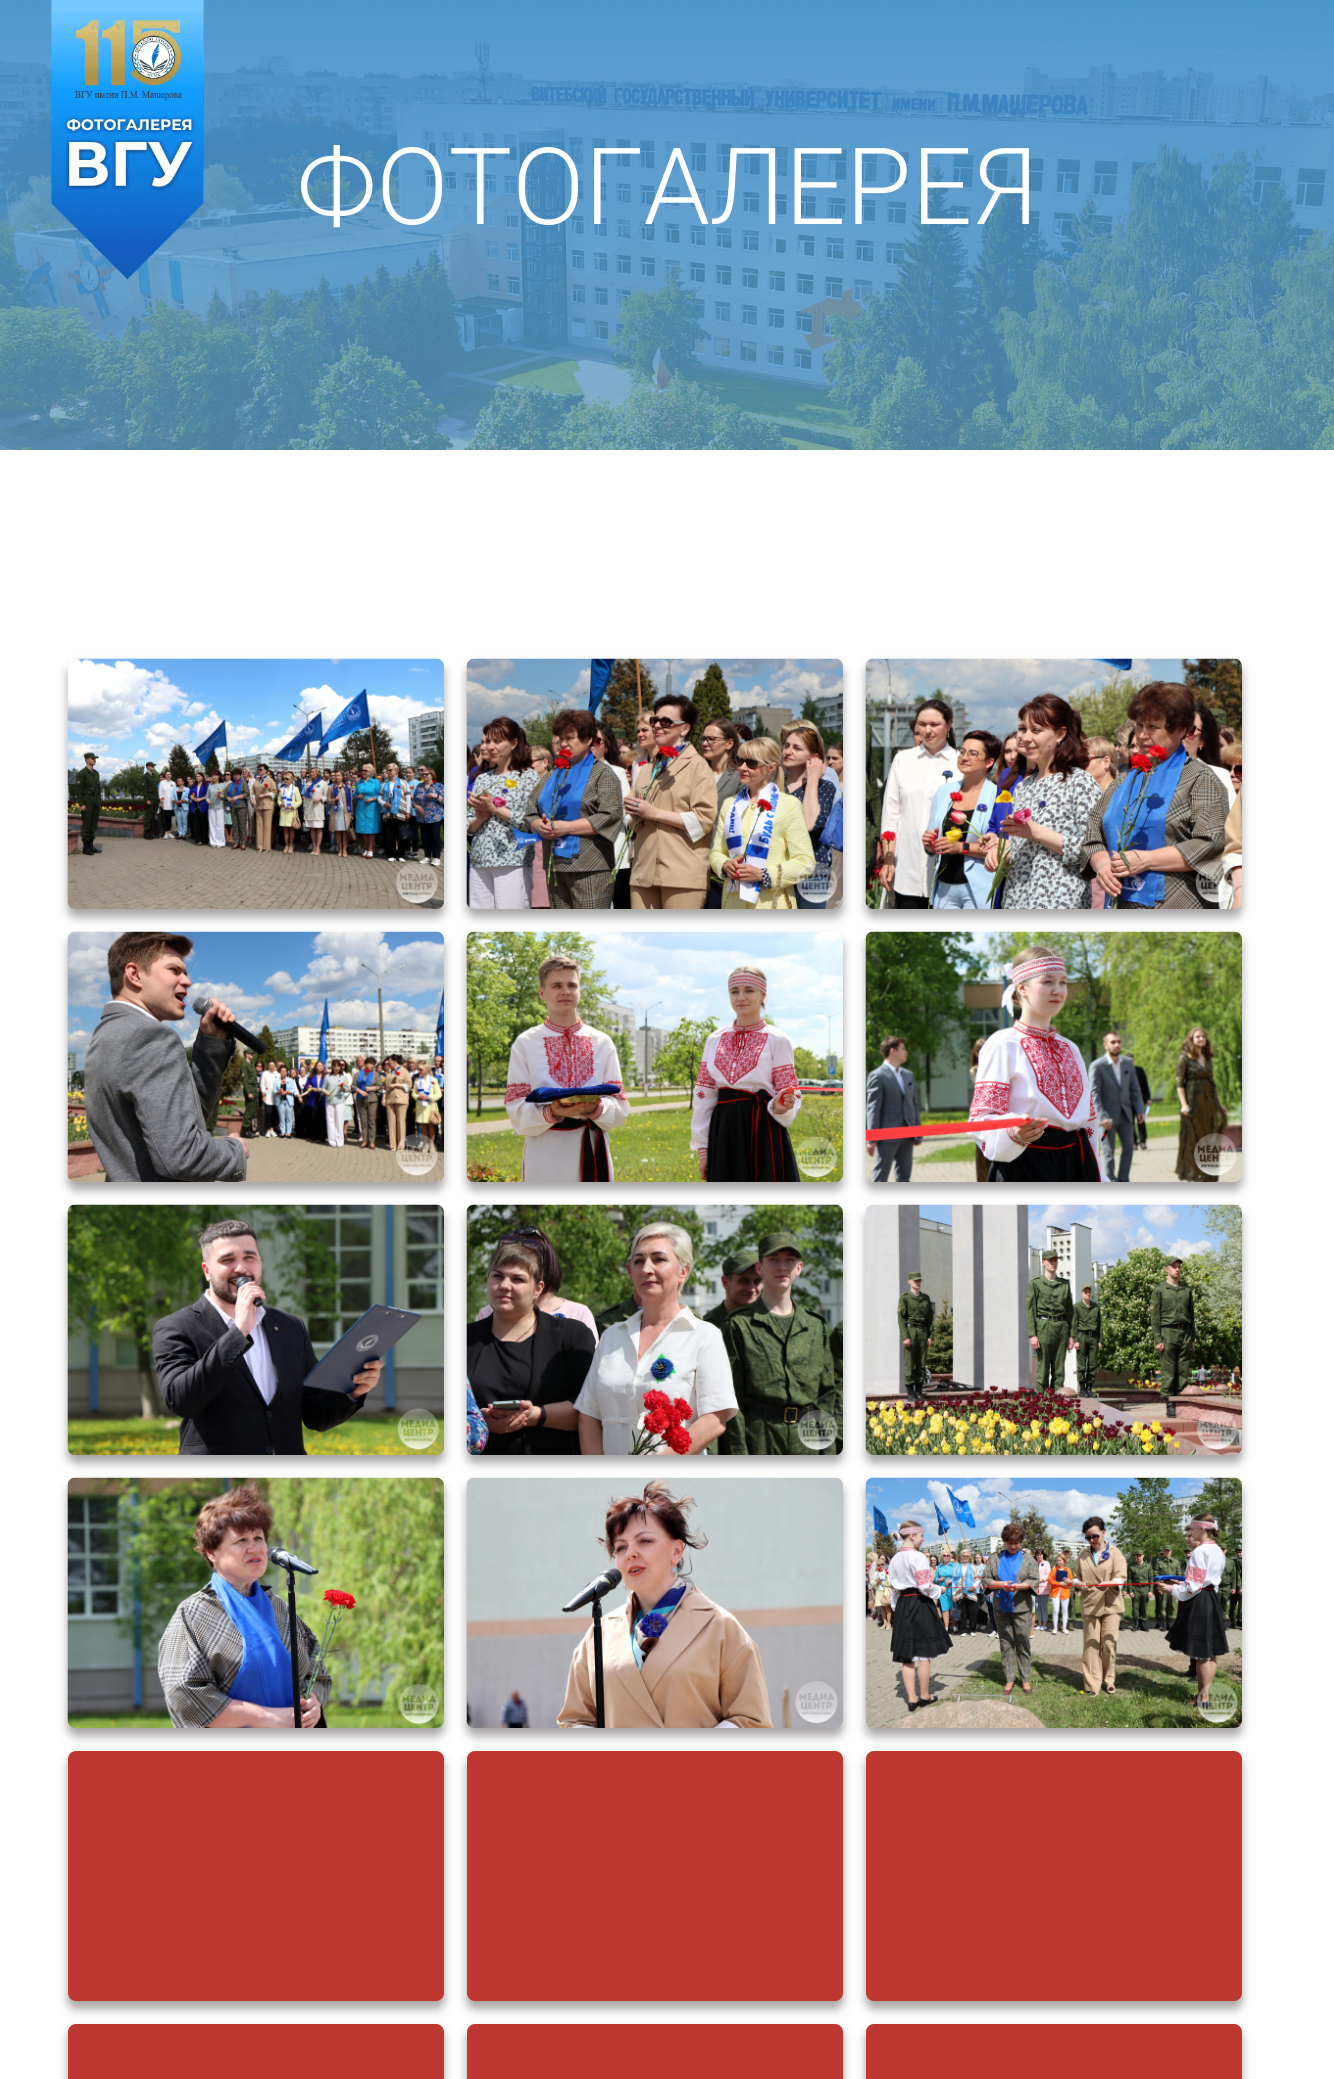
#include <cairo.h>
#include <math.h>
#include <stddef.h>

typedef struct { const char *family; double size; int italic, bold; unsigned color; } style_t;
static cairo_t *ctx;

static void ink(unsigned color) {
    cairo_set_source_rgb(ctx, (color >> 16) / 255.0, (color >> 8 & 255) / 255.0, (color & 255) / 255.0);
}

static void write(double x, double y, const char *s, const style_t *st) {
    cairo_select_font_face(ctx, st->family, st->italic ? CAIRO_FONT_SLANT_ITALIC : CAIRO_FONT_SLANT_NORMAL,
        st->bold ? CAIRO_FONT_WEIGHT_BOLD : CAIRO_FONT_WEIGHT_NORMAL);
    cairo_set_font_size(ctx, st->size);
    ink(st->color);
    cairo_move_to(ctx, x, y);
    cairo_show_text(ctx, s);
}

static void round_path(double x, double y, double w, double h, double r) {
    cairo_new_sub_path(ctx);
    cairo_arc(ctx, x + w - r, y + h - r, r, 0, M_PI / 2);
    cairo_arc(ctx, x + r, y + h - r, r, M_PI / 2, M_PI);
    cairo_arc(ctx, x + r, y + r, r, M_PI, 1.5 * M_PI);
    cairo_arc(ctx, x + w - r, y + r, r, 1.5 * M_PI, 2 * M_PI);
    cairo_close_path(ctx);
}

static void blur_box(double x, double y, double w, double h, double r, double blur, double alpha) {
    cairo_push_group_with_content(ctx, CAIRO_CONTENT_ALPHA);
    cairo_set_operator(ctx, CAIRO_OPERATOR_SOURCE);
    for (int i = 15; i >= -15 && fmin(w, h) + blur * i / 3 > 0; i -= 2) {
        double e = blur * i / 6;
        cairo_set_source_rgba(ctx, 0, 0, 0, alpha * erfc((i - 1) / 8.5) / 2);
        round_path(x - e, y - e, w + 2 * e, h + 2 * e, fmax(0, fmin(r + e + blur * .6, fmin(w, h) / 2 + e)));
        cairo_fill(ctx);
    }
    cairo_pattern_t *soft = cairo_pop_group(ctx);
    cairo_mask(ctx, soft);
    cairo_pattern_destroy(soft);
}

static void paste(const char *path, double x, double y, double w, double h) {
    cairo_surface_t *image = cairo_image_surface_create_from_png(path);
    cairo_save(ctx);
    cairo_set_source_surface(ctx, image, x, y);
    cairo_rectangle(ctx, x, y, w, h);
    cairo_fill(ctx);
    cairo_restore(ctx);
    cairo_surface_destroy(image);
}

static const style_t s1 = {"Roboto Light", 106.75, 0, 0, 0xffffff};

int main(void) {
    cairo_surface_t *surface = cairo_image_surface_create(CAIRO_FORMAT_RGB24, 1334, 2079);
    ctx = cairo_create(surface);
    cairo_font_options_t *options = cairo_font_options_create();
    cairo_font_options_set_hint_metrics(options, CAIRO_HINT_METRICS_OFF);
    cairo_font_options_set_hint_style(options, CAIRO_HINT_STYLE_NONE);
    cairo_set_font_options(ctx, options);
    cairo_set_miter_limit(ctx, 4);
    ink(0xffffff);
    cairo_paint(ctx);
    paste("pic1.png", 0, 0, 1334, 450);
    write(297, 224, "ФОТОГАЛЕРЕЯ", &s1);
    ink(0x221919);
    blur_box(68, 666, 376, 251, 8, 5, 0.4);
    paste("pic2.png", 67, 658, 377, 251);
    blur_box(467, 666, 376, 251, 8, 5, 0.4);
    paste("pic3.png", 466, 658, 377, 251);
    blur_box(866, 666, 376, 251, 8, 5, 0.4);
    paste("pic4.png", 865, 658, 377, 251);
    blur_box(68, 939, 376, 251, 8, 5, 0.4);
    paste("pic5.png", 67, 931, 377, 251);
    blur_box(467, 939, 376, 251, 8, 5, 0.4);
    paste("pic6.png", 466, 931, 377, 251);
    blur_box(866, 939, 376, 251, 8, 5, 0.4);
    paste("pic7.png", 865, 931, 377, 251);
    blur_box(68, 1212, 376, 251, 8, 5, 0.4);
    paste("pic8.png", 67, 1204, 377, 251);
    blur_box(467, 1212, 376, 251, 8, 5, 0.4);
    paste("pic9.png", 466, 1204, 377, 251);
    blur_box(866, 1212, 376, 251, 8, 5, 0.4);
    paste("pic10.png", 865, 1204, 377, 251);
    blur_box(68, 1485, 376, 251, 8, 5, 0.4);
    paste("pic11.png", 67, 1477, 377, 251);
    blur_box(467, 1485, 376, 251, 8, 5, 0.4);
    paste("pic12.png", 466, 1477, 377, 251);
    blur_box(866, 1485, 376, 251, 8, 5, 0.4);
    paste("pic13.png", 865, 1477, 377, 251);
    blur_box(68, 1758, 376, 251, 8, 5, 0.4);
    ink(0xbe3730);
    round_path(68, 1751, 376, 250, 8);
    cairo_fill(ctx);
    ink(0x221919);
    blur_box(467, 1758, 376, 251, 8, 5, 0.4);
    ink(0xbe3730);
    round_path(467, 1751, 376, 250, 8);
    cairo_fill(ctx);
    ink(0x221919);
    blur_box(866, 1758, 376, 251, 8, 5, 0.4);
    ink(0xbe3730);
    round_path(866, 1751, 376, 250, 8);
    cairo_fill(ctx);
    ink(0x221919);
    blur_box(68, 2031, 376, 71, 8, 5, 0.4);
    ink(0xbe3730);
    round_path(68, 2024, 376, 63, 8);
    cairo_fill(ctx);
    ink(0x221919);
    blur_box(467, 2031, 376, 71, 8, 5, 0.4);
    ink(0xbe3730);
    round_path(467, 2024, 376, 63, 8);
    cairo_fill(ctx);
    ink(0x221919);
    blur_box(866, 2031, 376, 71, 8, 5, 0.4);
    ink(0xbe3730);
    round_path(866, 2024, 376, 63, 8);
    cairo_fill(ctx);
    cairo_surface_write_to_png(surface, "screenshot.png");
    cairo_font_options_destroy(options);
    cairo_destroy(ctx);
    cairo_surface_destroy(surface);
    return 0;
}
